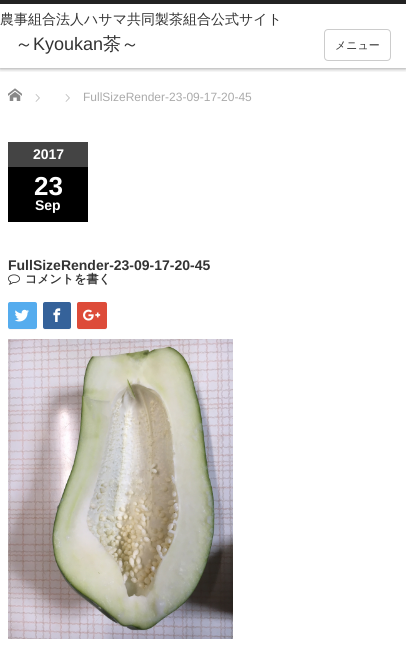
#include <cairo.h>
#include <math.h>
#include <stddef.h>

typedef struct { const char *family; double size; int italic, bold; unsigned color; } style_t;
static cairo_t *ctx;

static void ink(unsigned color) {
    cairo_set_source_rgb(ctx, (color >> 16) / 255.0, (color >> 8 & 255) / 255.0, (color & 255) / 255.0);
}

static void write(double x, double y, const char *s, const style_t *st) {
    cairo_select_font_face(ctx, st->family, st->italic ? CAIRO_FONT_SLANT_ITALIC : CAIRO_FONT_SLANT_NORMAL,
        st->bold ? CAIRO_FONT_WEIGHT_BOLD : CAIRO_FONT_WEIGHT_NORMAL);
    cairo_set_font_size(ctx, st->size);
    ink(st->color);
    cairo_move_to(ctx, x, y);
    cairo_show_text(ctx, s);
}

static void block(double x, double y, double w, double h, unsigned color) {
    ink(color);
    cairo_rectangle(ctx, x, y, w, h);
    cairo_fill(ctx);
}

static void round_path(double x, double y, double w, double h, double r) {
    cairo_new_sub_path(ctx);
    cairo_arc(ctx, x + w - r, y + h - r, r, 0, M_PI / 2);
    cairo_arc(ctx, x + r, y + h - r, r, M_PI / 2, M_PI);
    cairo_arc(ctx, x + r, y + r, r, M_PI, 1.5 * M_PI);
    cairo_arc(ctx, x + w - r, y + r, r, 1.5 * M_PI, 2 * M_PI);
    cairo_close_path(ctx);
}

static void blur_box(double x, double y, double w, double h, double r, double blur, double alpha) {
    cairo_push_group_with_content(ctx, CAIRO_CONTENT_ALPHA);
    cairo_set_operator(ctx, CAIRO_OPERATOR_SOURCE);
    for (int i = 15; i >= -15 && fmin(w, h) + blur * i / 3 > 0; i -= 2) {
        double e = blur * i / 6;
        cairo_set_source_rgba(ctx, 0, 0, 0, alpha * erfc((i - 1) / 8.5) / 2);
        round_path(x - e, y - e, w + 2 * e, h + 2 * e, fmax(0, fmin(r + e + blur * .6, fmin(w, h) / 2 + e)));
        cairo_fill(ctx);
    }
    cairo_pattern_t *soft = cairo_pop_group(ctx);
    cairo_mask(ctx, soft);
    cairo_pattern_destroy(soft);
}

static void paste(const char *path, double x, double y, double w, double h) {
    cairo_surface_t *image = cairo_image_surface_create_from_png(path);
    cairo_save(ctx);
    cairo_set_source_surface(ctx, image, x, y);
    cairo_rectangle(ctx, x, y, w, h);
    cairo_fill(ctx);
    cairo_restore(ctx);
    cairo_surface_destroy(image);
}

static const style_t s1 = {"WenQuanYi Zen Hei Medium", 14, 0, 0, 0x333333};
static const style_t s2 = {"WenQuanYi Zen Hei Medium", 18, 0, 0, 0x333333};
static const style_t s3 = {"Liberation Sans", 18, 0, 0, 0x333333};
static const style_t s4 = {"WenQuanYi Zen Hei Medium", 11, 0, 0, 0x333333};
static const style_t s5 = {"Liberation Sans", 12, 0, 0, 0xaaaaaa};
static const style_t s6 = {"Liberation Sans", 14, 0, 1, 0xffffff};
static const style_t s7 = {"Liberation Sans", 26, 0, 1, 0xffffff};
static const style_t s8 = {"Liberation Sans", 14, 0, 1, 0x333333};
static const style_t s9 = {"WenQuanYi Zen Hei", 12, 0, 1, 0x333333};

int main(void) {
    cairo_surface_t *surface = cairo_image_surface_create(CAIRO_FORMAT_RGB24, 406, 649);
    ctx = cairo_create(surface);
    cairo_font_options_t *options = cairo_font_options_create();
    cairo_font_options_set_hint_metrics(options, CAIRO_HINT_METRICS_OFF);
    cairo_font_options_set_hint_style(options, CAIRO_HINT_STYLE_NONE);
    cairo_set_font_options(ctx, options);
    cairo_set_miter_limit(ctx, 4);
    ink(0xffffff);
    cairo_paint(ctx);
    cairo_save(ctx);
    cairo_rectangle(ctx, 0, 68, 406, 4);
    cairo_clip(ctx);
    ink(0x000000);
    blur_box(0, 0, 406, 68, 0, 2.5, 0.5);
    cairo_restore(ctx);
    block(0, 0, 406, 4, 0x222222);
    write(0, 24, "農事組合法人ハサマ共同製茶組合公式サイト", &s1);
    write(15, 50, "～", &s2);
    write(33, 50, "Kyoukan", &s3);
    write(103, 50, "茶～", &s2);
    round_path(324.5, 29.5, 66, 31, 3.5);
    ink(0xcccccc);
    cairo_set_line_width(ctx, 1);
    cairo_stroke(ctx);
    write(335, 49, "メニュー", &s4);
    paste("pic1.png", 8, 88, 14, 13);
    paste("pic2.png", 35, 94, 5, 8);
    paste("pic2.png", 65, 94, 5, 8);
    write(83, 101, "FullSizeRender-23-09-17-20-45", &s5);
    block(8, 167, 80, 55, 0x000000);
    block(8, 142, 80, 25, 0x444444);
    write(33, 159, "2017", &s6);
    write(34, 195, "23", &s7);
    write(35, 210, "Sep", &s6);
    write(8, 270, "FullSizeRender-23-09-17-20-45", &s8);
    paste("pic3.png", 8, 274, 12, 11);
    write(25, 283, "コメントを書く", &s9);
    ink(0xf7f7f7);
    cairo_new_path(ctx);
    cairo_move_to(ctx, 8, 327);
    cairo_curve_to(ctx, 8, 331, 10.5, 330, 14, 330);
    cairo_line_to(ctx, 31, 330);
    cairo_curve_to(ctx, 34.5, 330, 37, 331, 37, 327);
    cairo_curve_to(ctx, 37, 328, 36, 329, 35, 329);
    cairo_line_to(ctx, 10, 329);
    cairo_curve_to(ctx, 9, 329, 8, 328, 8, 327);
    cairo_close_path(ctx);
    cairo_fill(ctx);
    ink(0x55acee);
    round_path(8, 302, 29, 27, 2);
    cairo_fill(ctx);
    paste("pic4.png", 14, 309, 15, 13);
    ink(0xf7f7f7);
    cairo_new_path(ctx);
    cairo_move_to(ctx, 43, 327);
    cairo_curve_to(ctx, 43, 331, 45.5, 330, 49, 330);
    cairo_line_to(ctx, 65, 330);
    cairo_curve_to(ctx, 68.5, 330, 71, 331, 71, 327);
    cairo_curve_to(ctx, 71, 328, 70, 329, 69, 329);
    cairo_line_to(ctx, 45, 329);
    cairo_curve_to(ctx, 44, 329, 43, 328, 43, 327);
    cairo_close_path(ctx);
    cairo_fill(ctx);
    ink(0x35629a);
    round_path(43, 302, 28, 27, 2);
    cairo_fill(ctx);
    paste("pic5.png", 53, 308, 8, 14);
    ink(0xf7f7f7);
    cairo_new_path(ctx);
    cairo_move_to(ctx, 77, 327);
    cairo_curve_to(ctx, 77, 331, 79.5, 330, 83.5, 330);
    cairo_line_to(ctx, 100.5, 330);
    cairo_curve_to(ctx, 104.5, 330, 107, 331, 107, 327);
    cairo_curve_to(ctx, 107, 328, 106, 329, 105, 329);
    cairo_line_to(ctx, 79, 329);
    cairo_curve_to(ctx, 78, 329, 77, 328, 77, 327);
    cairo_close_path(ctx);
    cairo_fill(ctx);
    ink(0xdd4b39);
    round_path(77, 302, 30, 27, 2);
    cairo_fill(ctx);
    paste("pic6.png", 83, 309, 18, 12);
    paste("pic7.png", 8, 339, 225, 300);
    cairo_surface_write_to_png(surface, "screenshot.png");
    cairo_font_options_destroy(options);
    cairo_destroy(ctx);
    cairo_surface_destroy(surface);
    return 0;
}
